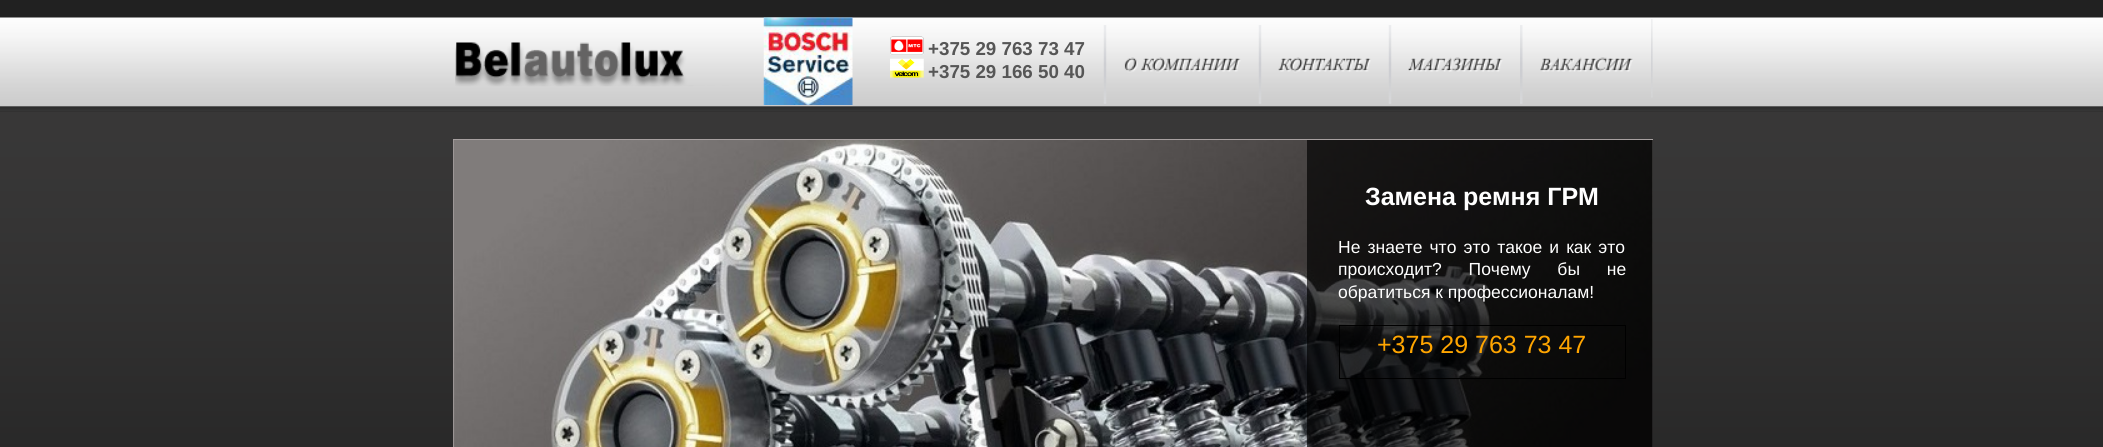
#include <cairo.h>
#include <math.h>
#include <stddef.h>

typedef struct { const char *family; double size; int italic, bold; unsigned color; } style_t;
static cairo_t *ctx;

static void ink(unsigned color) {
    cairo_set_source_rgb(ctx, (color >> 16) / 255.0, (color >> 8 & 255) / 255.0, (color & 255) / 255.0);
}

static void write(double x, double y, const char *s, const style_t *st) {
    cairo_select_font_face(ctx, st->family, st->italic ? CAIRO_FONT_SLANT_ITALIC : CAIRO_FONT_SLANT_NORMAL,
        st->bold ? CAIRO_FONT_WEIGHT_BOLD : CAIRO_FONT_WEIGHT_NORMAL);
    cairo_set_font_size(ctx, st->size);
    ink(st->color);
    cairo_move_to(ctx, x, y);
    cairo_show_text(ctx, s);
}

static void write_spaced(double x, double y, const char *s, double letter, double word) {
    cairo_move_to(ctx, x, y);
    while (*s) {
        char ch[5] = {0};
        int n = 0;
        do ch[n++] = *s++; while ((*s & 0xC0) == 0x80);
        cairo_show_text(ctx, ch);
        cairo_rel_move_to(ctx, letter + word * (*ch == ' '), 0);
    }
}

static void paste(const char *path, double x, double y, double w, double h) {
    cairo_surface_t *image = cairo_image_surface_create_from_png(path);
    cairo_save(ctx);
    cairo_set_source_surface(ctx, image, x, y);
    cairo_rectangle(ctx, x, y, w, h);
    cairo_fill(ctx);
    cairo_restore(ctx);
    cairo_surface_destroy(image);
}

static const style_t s1 = {"Liberation Sans", 18.75, 0, 1, 0x565656};
static const style_t s2 = {"Liberation Sans", 25, 0, 1, 0xffffff};
static const style_t s3 = {"Liberation Sans", 17.5, 0, 0, 0xffffff};
static const style_t s4 = {"Liberation Sans", 25, 0, 0, 0xffa500};

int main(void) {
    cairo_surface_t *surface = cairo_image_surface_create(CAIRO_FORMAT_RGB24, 2103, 447);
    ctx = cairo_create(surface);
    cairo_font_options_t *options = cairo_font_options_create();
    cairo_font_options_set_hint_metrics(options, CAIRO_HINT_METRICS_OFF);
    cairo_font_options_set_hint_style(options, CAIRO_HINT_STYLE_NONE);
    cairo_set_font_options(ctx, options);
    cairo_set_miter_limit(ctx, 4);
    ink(0x212121);
    cairo_paint(ctx);
    paste("pic1.png", 0, 17, 2103, 94);
    paste("pic2.png", 455, 17, 398, 88);
    paste("pic3.png", 890, 36, 34, 19);
    write(928, 55, "+375 29 763 73 47", &s1);
    paste("pic4.png", 890, 58, 34, 20);
    write(928, 78, "+375 29 166 50 40", &s1);
    paste("pic5.png", 1651, 19, 2, 79);
    paste("pic6.png", 1103, 25, 4, 79);
    paste("pic7.png", 1124, 57, 14, 16);
    paste("pic8.png", 1141, 57, 100, 16);
    paste("pic6.png", 1258, 25, 4, 79);
    paste("pic9.png", 1278, 57, 93, 16);
    paste("pic6.png", 1388, 25, 4, 79);
    paste("pic10.png", 1408, 57, 95, 15);
    paste("pic11.png", 1520, 25, 3, 79);
    paste("pic12.png", 1540, 57, 93, 15);
    paste("pic13.png", 0, 111, 2103, 336);
    cairo_save(ctx);
    cairo_rectangle(ctx, 453, 139, 1200, 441);
    cairo_clip(ctx);
    cairo_rectangle(ctx, 453.5, 139.5, 1201, 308);
    ink(0xa7a0a0);
    cairo_set_line_width(ctx, 1);
    cairo_stroke(ctx);
    cairo_restore(ctx);
    paste("pic14.png", 453, 140, 1200, 307);
    cairo_set_source_rgba(ctx, 0, 0, 0, 0.68);
    cairo_rectangle(ctx, 1307, 140, 345, 307);
    cairo_fill(ctx);
    write(1365, 205, "Замена ремня ГРМ", &s2);
    cairo_select_font_face(ctx, "Liberation Sans", CAIRO_FONT_SLANT_NORMAL, CAIRO_FONT_WEIGHT_NORMAL);
    cairo_set_font_size(ctx, 17.5);
    write_spaced(1338, 253, "Не знаете что это такое и как это", 0, 2.25);
    write_spaced(1338, 275, "происходит? Почему бы не", 0, 22);
    write(1338, 298, "обратиться к профессионалам!", &s3);
    cairo_rectangle(ctx, 1339.5, 325.5, 286, 53);
    ink(0x000000);
    cairo_set_line_width(ctx, 1);
    cairo_stroke(ctx);
    write(1377, 353, "+375 29 763 73 47", &s4);
    cairo_surface_write_to_png(surface, "screenshot.png");
    cairo_font_options_destroy(options);
    cairo_destroy(ctx);
    cairo_surface_destroy(surface);
    return 0;
}
